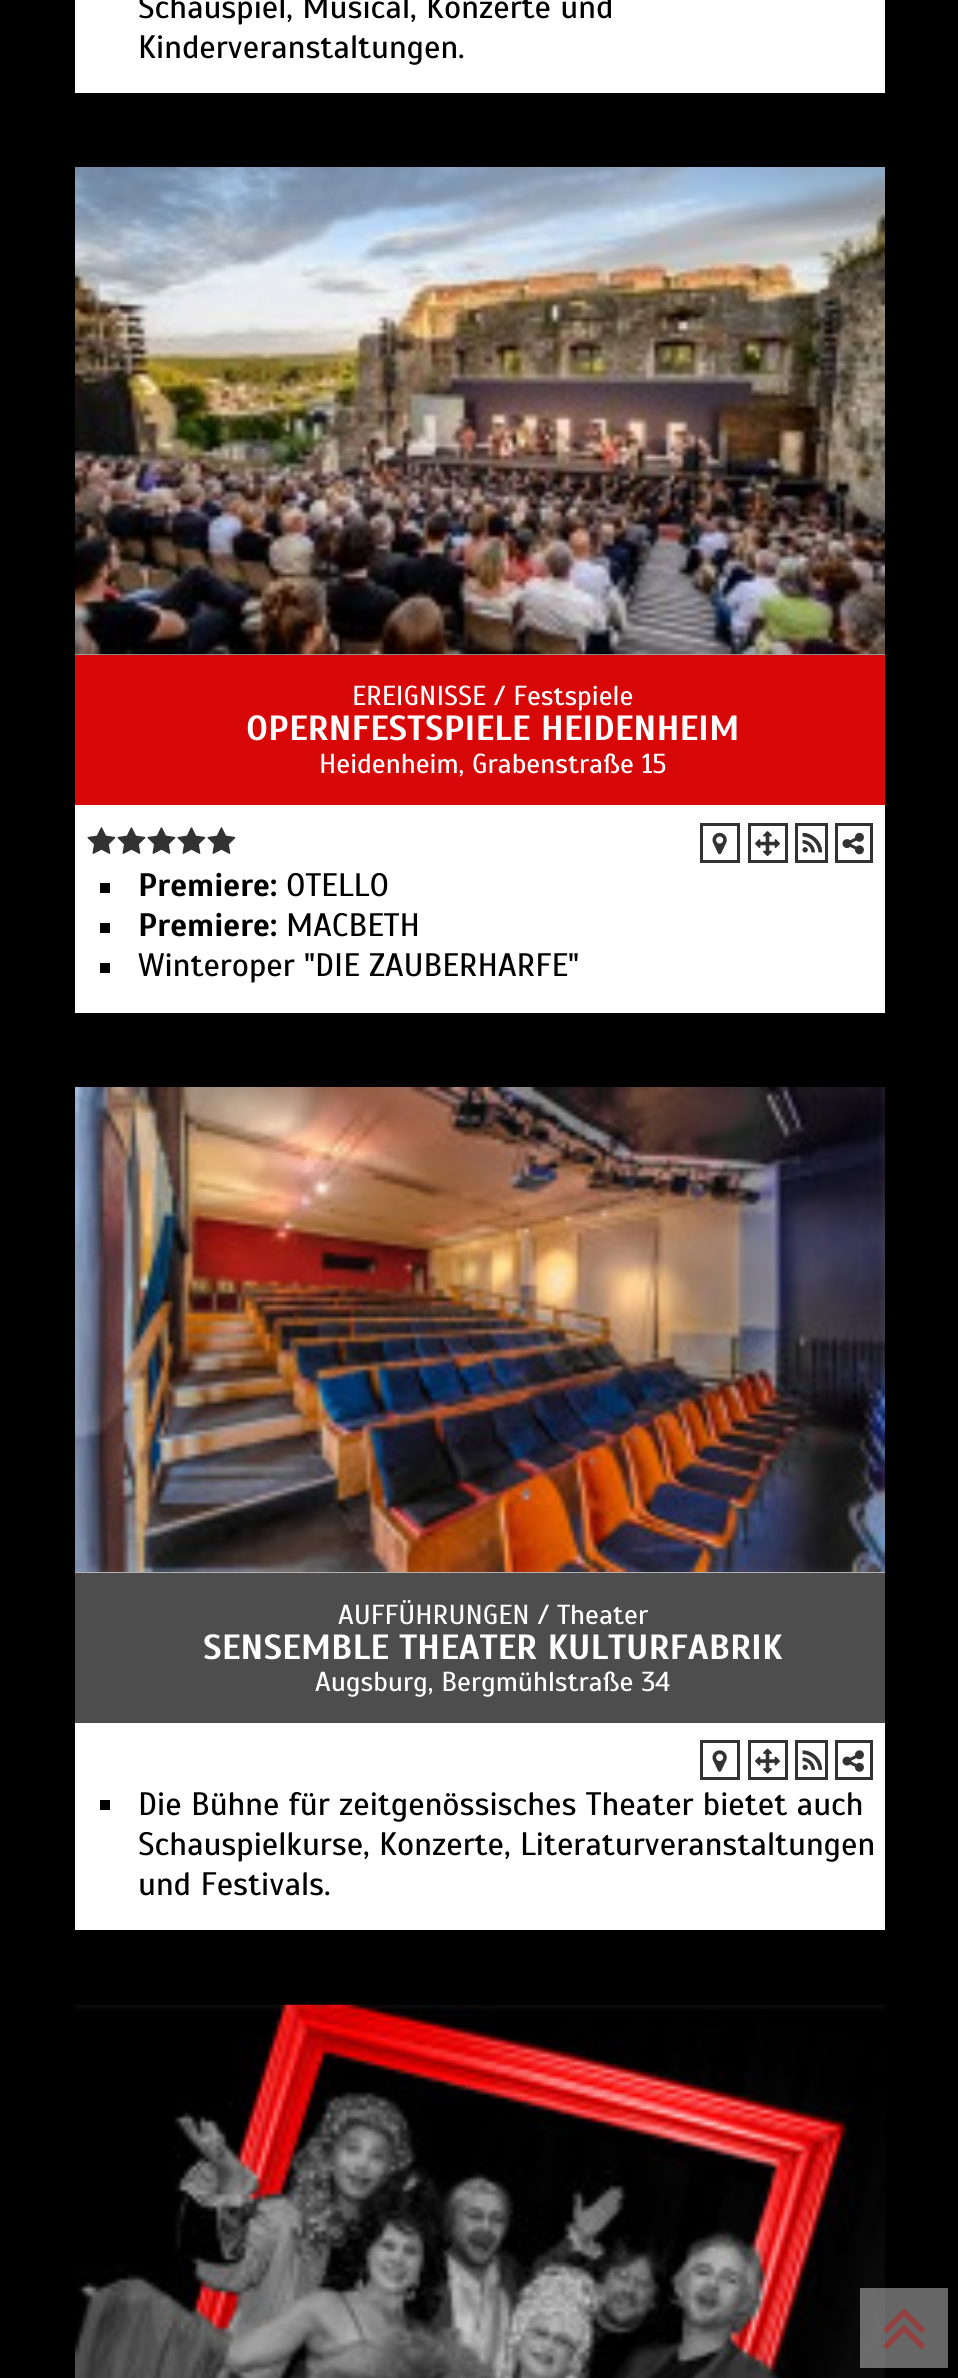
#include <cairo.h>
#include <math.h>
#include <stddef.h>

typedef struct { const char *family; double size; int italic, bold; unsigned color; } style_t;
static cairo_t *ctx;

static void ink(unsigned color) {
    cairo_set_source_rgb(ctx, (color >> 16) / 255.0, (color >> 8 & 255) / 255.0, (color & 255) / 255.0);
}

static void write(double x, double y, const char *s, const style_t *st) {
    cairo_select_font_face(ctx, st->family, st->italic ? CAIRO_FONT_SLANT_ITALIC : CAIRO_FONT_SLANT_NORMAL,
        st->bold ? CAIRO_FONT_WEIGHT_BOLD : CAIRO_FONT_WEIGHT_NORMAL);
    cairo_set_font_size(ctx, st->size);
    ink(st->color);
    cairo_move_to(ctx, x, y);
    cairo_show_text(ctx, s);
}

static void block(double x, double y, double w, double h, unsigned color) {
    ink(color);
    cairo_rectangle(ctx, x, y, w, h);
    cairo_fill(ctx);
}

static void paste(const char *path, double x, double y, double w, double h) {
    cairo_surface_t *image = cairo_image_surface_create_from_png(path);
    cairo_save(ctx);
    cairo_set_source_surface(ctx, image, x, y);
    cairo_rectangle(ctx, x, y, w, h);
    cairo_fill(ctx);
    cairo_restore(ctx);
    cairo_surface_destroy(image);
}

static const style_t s1 = {"Scada", 32.5, 0, 0, 0x000000};
static const style_t s2 = {"Scada", 27.5, 0, 0, 0xffffff};
static const style_t s3 = {"Scada", 35, 0, 1, 0xffffff};
static const style_t s4 = {"Scada", 32.5, 0, 1, 0x000000};

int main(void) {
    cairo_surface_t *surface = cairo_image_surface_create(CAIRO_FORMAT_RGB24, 958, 2378);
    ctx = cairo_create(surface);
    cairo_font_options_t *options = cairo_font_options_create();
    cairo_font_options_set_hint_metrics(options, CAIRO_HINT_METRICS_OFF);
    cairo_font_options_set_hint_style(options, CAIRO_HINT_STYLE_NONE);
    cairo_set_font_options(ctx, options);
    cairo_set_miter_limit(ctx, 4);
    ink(0x000000);
    cairo_paint(ctx);
    block(75, 0, 810, 93, 0xffffff);
    write(138, 18, "Schauspiel, Musical, Konzerte und", &s1);
    write(138, 58, "Kinderveranstaltungen.", &s1);
    block(75, 805, 810, 208, 0xffffff);
    block(75, 654, 810, 1, 0xb3b3b3);
    paste("pic1.png", 75, 167, 810, 488);
    block(75, 655, 810, 150, 0xd80808);
    write(352, 705, "EREIGNISSE / Festspiele", &s2);
    write(246, 740, "OPERNFESTSPIELE HEIDENHEIM", &s3);
    write(319, 773, "Heidenheim, Grabenstraße 15", &s2);
    paste("pic2.png", 87, 827, 29, 27);
    paste("pic2.png", 117, 827, 29, 27);
    paste("pic2.png", 147, 827, 29, 27);
    paste("pic2.png", 177, 827, 29, 27);
    paste("pic2.png", 207, 827, 29, 27);
    cairo_rectangle(ctx, 701.5, 824.5, 37, 37);
    ink(0x323232);
    cairo_set_line_width(ctx, 3);
    cairo_stroke(ctx);
    paste("pic3.png", 712, 832, 15, 23);
    cairo_rectangle(ctx, 749.5, 824.5, 37, 37);
    cairo_stroke(ctx);
    paste("pic4.png", 755, 831, 25, 25);
    cairo_rectangle(ctx, 796.5, 824.5, 30, 37);
    cairo_stroke(ctx);
    paste("pic5.png", 802, 832, 21, 21);
    cairo_rectangle(ctx, 836.5, 824.5, 35, 37);
    cairo_stroke(ctx);
    paste("pic6.png", 842, 832, 22, 23);
    block(100, 883, 10, 10, 0x000000);
    write(138, 896, "Premiere:", &s4);
    write(286, 896, "OTELLO", &s1);
    block(100, 923, 10, 10, 0x000000);
    write(138, 936, "Premiere:", &s4);
    write(286, 936, "MACBETH", &s1);
    block(100, 963, 10, 10, 0x000000);
    write(138, 976, "Winteroper \"DIE ZAUBERHARFE\"", &s1);
    block(75, 1723, 810, 207, 0xffffff);
    block(75, 1572, 810, 1, 0xb3b3b3);
    paste("pic7.png", 75, 1087, 810, 485);
    block(75, 1573, 810, 150, 0x4d4d4d);
    write(338, 1624, "AUFFÜHRUNGEN / Theater", &s2);
    write(203, 1659, "SENSEMBLE THEATER KULTURFABRIK", &s3);
    write(315, 1691, "Augsburg, Bergmühlstraße 34", &s2);
    cairo_rectangle(ctx, 701.5, 1741.5, 37, 37);
    ink(0x323232);
    cairo_stroke(ctx);
    paste("pic8.png", 712, 1750, 15, 22);
    cairo_rectangle(ctx, 749.5, 1741.5, 37, 37);
    cairo_stroke(ctx);
    paste("pic9.png", 755, 1748, 25, 26);
    cairo_rectangle(ctx, 796.5, 1741.5, 30, 37);
    cairo_stroke(ctx);
    paste("pic10.png", 802, 1750, 21, 20);
    cairo_rectangle(ctx, 836.5, 1741.5, 35, 37);
    cairo_stroke(ctx);
    paste("pic11.png", 842, 1750, 22, 22);
    block(100, 1800, 10, 10, 0x000000);
    write(138, 1815, "Die Bühne für zeitgenössisches Theater bietet auch", &s1);
    write(138, 1855, "Schauspielkurse, Konzerte, Literaturveranstaltungen", &s1);
    write(138, 1895, "und Festivals.", &s1);
    paste("pic12.png", 75, 2004, 810, 374);
    cairo_set_source_rgba(ctx, 1, 1, 1, 0.4);
    cairo_rectangle(ctx, 860, 2288, 88, 80);
    cairo_fill(ctx);
    paste("pic13.png", 883, 2308, 42, 41);
    cairo_surface_write_to_png(surface, "screenshot.png");
    cairo_font_options_destroy(options);
    cairo_destroy(ctx);
    cairo_surface_destroy(surface);
    return 0;
}
